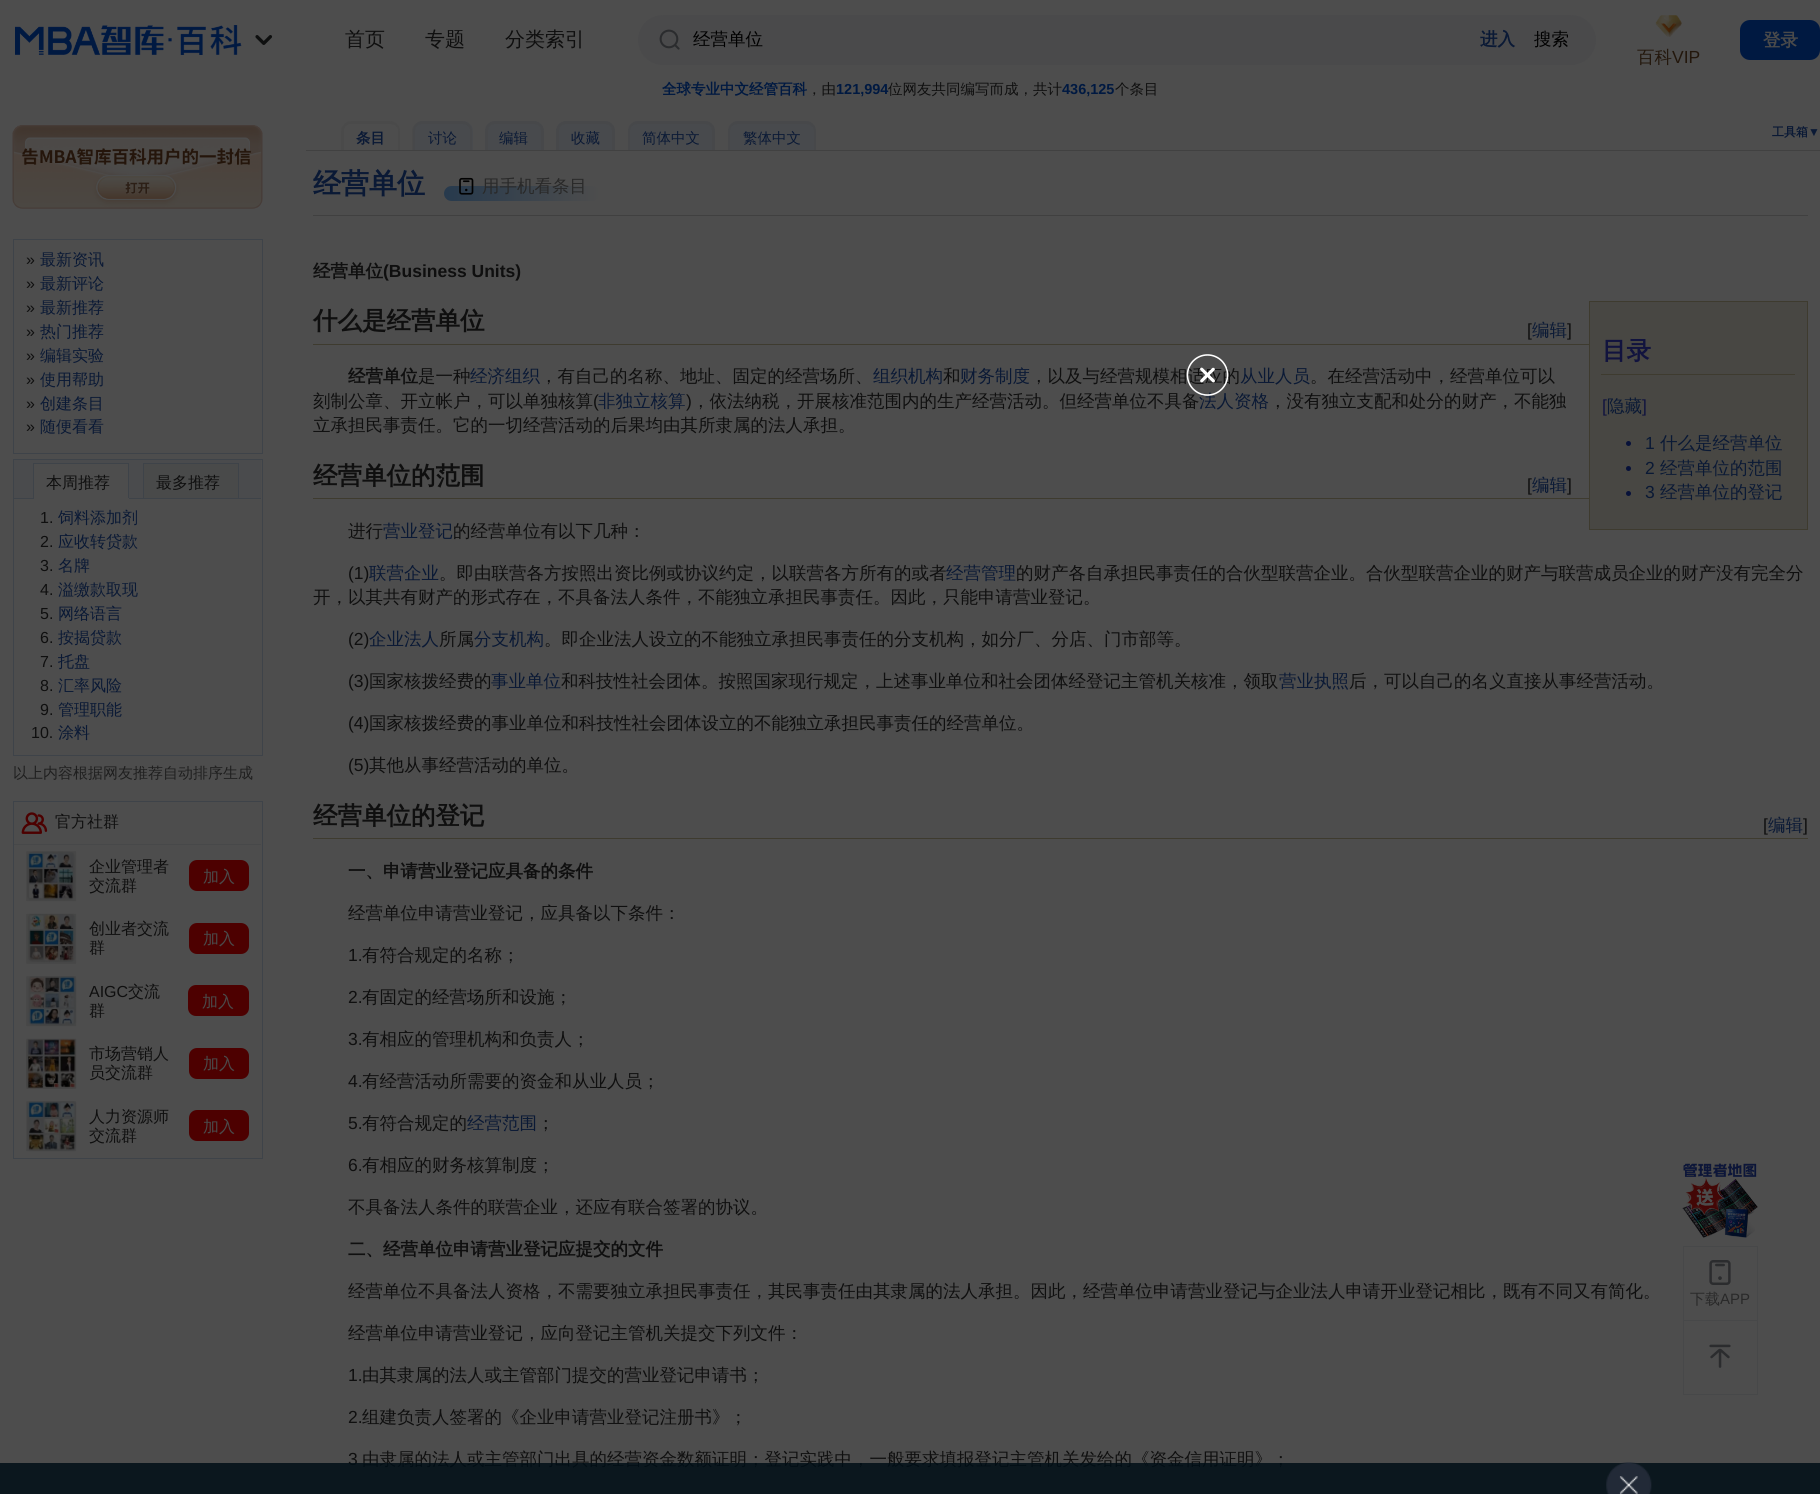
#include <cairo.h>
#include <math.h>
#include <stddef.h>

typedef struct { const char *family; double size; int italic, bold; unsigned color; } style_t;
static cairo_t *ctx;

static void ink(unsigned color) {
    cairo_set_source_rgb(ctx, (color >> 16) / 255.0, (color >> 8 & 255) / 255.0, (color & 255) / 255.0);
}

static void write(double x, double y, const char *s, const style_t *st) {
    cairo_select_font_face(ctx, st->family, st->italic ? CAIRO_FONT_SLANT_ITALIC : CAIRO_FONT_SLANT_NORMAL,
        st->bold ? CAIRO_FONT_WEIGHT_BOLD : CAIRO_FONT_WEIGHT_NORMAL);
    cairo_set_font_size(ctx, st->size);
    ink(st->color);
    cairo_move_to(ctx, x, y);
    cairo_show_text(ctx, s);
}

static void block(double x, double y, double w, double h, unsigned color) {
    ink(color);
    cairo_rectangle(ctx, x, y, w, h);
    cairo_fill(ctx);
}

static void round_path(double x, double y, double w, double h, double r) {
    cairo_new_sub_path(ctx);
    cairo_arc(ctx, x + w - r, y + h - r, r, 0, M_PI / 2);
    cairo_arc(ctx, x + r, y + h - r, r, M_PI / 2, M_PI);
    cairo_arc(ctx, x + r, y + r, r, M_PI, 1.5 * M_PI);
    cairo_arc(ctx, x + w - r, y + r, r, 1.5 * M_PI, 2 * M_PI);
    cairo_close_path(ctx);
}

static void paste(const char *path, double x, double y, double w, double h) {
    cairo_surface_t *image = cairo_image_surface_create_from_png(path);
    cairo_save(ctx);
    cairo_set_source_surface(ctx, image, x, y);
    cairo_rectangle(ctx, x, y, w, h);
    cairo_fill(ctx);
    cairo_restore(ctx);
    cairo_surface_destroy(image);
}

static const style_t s1 = {"WenQuanYi Zen Hei Medium", 20, 0, 0, 0x0f0f0f};
static const style_t s2 = {"WenQuanYi Zen Hei Medium", 17.5, 0, 0, 0x000000};
static const style_t s3 = {"WenQuanYi Zen Hei", 17.5, 0, 1, 0x0a1935};
static const style_t s4 = {"WenQuanYi Zen Hei", 17.5, 0, 1, 0x4a4a4a};
static const style_t s5 = {"WenQuanYi Zen Hei Medium", 17.5, 0, 0, 0x23170c};
static const style_t s6 = {"Liberation Sans", 17.5, 0, 0, 0x23170c};
static const style_t s7 = {"Liberation Sans", 16, 0, 0, 0x0f0f0f};
static const style_t s8 = {"WenQuanYi Zen Hei Medium", 16, 0, 0, 0x0a1935};
static const style_t s9 = {"WenQuanYi Zen Hei Medium", 16, 0, 0, 0x0f0f0f};
static const style_t s10 = {"WenQuanYi Zen Hei Medium", 15, 0, 0, 0x1f1f1f};
static const style_t s11 = {"WenQuanYi Zen Hei Medium", 16, 0, 0, 0x4a4a4a};
static const style_t s12 = {"WenQuanYi Zen Hei", 14.5, 0, 1, 0x001941};
static const style_t s13 = {"WenQuanYi Zen Hei Medium", 14.5, 0, 0, 0x0f0f0f};
static const style_t s14 = {"Liberation Sans", 14.5, 0, 1, 0x001941};
static const style_t s15 = {"WenQuanYi Zen Hei", 14.5, 0, 1, 0x0a1935};
static const style_t s16 = {"WenQuanYi Zen Hei Medium", 14.5, 0, 0, 0x0a1935};
static const style_t s17 = {"WenQuanYi Zen Hei", 12, 0, 1, 0x0a1935};
static const style_t s18 = {"Liberation Sans", 12, 0, 1, 0x0a1935};
static const style_t s19 = {"WenQuanYi Zen Hei", 28, 0, 1, 0x0a1935};
static const style_t s20 = {"WenQuanYi Zen Hei Medium", 17.5, 0, 0, 0x292929};
static const style_t s21 = {"WenQuanYi Zen Hei", 17.5, 0, 1, 0x0f0f0f};
static const style_t s22 = {"Liberation Sans", 17.5, 0, 1, 0x0f0f0f};
static const style_t s23 = {"WenQuanYi Zen Hei", 24.5, 0, 1, 0x0f0f0f};
static const style_t s24 = {"Liberation Sans", 17.5, 0, 0, 0x0f0f0f};
static const style_t s25 = {"WenQuanYi Zen Hei Medium", 17.5, 0, 0, 0x0a1935};
static const style_t s26 = {"WenQuanYi Zen Hei Medium", 17.5, 0, 0, 0x0f0f0f};
static const style_t s27 = {"WenQuanYi Zen Hei", 24.5, 0, 1, 0x11133e};
static const style_t s28 = {"Liberation Sans", 17.5, 0, 0, 0x11133e};
static const style_t s29 = {"Liberation Sans", 17.5, 0, 0, 0x0a1935};
static const style_t s30 = {"WenQuanYi Zen Hei Medium", 15, 0, 0, 0x292929};
static const style_t s31 = {"Liberation Sans", 15, 0, 0, 0x292929};

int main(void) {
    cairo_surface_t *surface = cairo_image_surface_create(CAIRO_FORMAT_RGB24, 1820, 1494);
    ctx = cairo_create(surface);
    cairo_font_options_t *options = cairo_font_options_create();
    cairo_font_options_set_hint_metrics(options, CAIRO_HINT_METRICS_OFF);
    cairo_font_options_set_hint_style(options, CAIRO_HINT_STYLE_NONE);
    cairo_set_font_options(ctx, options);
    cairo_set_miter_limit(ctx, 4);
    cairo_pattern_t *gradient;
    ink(0x4d4d4d);
    cairo_paint(ctx);
    paste("pic1.png", 15, 25, 227, 30);
    paste("pic2.png", 255, 35, 18, 10);
    write(345, 46, "首页", &s1);
    write(425, 46, "专题", &s1);
    write(505, 46, "分类索引", &s1);
    ink(0x4a4a4b);
    round_path(638, 15, 958, 50, 25);
    cairo_fill(ctx);
    paste("pic3.png", 659, 29, 21, 21);
    cairo_save(ctx);
    cairo_rectangle(ctx, 693, 30, 760, 20);
    cairo_clip(ctx);
    write(693, 45, "经营单位", &s2);
    cairo_restore(ctx);
    write(1480, 45, "进入", &s3);
    write(1534, 45, "搜索", &s2);
    ink(0x001941);
    round_path(1740, 20, 80, 40, 10);
    cairo_fill(ctx);
    write(1763, 46, "登录", &s4);
    paste("pic4.png", 1655, 15, 27, 22);
    write(1637, 63, "百科", &s5);
    write(1672, 63, "VIP", &s6);
    paste("pic5.png", 12, 125, 251, 84);
    cairo_rectangle(ctx, 13.5, 239.5, 249, 214);
    ink(0x3e4349);
    cairo_set_line_width(ctx, 1);
    cairo_stroke(ctx);
    write(26, 265, "»", &s7);
    write(40, 265, "最新资讯", &s8);
    write(26, 289, "»", &s7);
    write(40, 289, "最新评论", &s8);
    write(26, 313, "»", &s7);
    write(40, 313, "最新推荐", &s8);
    write(26, 337, "»", &s7);
    write(40, 337, "热门推荐", &s8);
    write(26, 361, "»", &s7);
    write(40, 361, "编辑实验", &s8);
    write(26, 385, "»", &s7);
    write(40, 385, "使用帮助", &s8);
    write(26, 409, "»", &s7);
    write(40, 409, "创建条目", &s8);
    write(26, 432, "»", &s7);
    write(40, 432, "随便看看", &s8);
    cairo_rectangle(ctx, 13.5, 459.5, 249, 296);
    ink(0x3e4349);
    cairo_stroke(ctx);
    block(14, 460, 247, 38, 0x4a4b4d);
    block(14, 498, 247, 1, 0x3e4349);
    block(34, 464, 94, 34, 0x4d4d4d);
    block(33, 463, 96, 1, 0x3e4349);
    block(128, 463, 1, 36, 0x3e4349);
    block(33, 498, 96, 1, 0x4d4d4d);
    block(33, 463, 1, 36, 0x3e4349);
    write(46, 488, "本周推荐", &s9);
    block(144, 464, 94, 34, 0x494a4a);
    block(143, 463, 96, 1, 0x3e4349);
    block(238, 463, 1, 35, 0x3e4349);
    block(143, 463, 1, 35, 0x3e4349);
    write(156, 488, "最多推荐", &s9);
    write(40, 523, "1.", &s7);
    write(58, 523, "饲料添加剂", &s8);
    write(40, 547, "2.", &s7);
    write(58, 547, "应收转贷款", &s8);
    write(40, 571, "3.", &s7);
    write(58, 571, "名牌", &s8);
    write(40, 595, "4.", &s7);
    write(58, 595, "溢缴款取现", &s8);
    write(40, 619, "5.", &s7);
    write(58, 619, "网络语言", &s8);
    write(40, 643, "6.", &s7);
    write(58, 643, "按揭贷款", &s8);
    write(40, 667, "7.", &s7);
    write(58, 667, "托盘", &s8);
    write(40, 691, "8.", &s7);
    write(58, 691, "汇率风险", &s8);
    write(40, 715, "9.", &s7);
    write(58, 715, "管理职能", &s8);
    write(31, 738, "10.", &s7);
    write(58, 738, "涂料", &s8);
    write(13, 778, "以上内容根据网友推荐自动排序生成", &s10);
    cairo_rectangle(ctx, 13.5, 801.5, 249, 357);
    ink(0x3e4349);
    cairo_stroke(ctx);
    block(14, 844, 247, 1, 0x474849);
    paste("pic6.png", 21, 812, 27, 22);
    write(55, 827, "官方社群", &s9);
    paste("pic7.png", 26, 851, 51, 51);
    write(89, 872, "企业管理者", &s9);
    write(89, 891, "交流群", &s9);
    ink(0x4d0000);
    round_path(189, 860, 60, 31, 8);
    cairo_fill(ctx);
    write(203, 882, "加入", &s11);
    paste("pic8.png", 26, 913, 51, 51);
    write(89, 934, "创业者交流", &s9);
    write(89, 953, "群", &s9);
    ink(0x4d0000);
    round_path(189, 923, 60, 31, 8);
    cairo_fill(ctx);
    write(203, 944, "加入", &s11);
    paste("pic9.png", 26, 976, 51, 51);
    write(89, 997, "AIGC", &s7);
    write(128, 997, "交流", &s9);
    write(89, 1016, "群", &s9);
    ink(0x4d0000);
    round_path(188, 985, 61, 31, 8);
    cairo_fill(ctx);
    write(202, 1007, "加入", &s11);
    paste("pic10.png", 26, 1038, 51, 51);
    write(89, 1059, "市场营销人", &s9);
    write(89, 1078, "员交流群", &s9);
    ink(0x4d0000);
    round_path(189, 1048, 60, 31, 8);
    cairo_fill(ctx);
    write(203, 1069, "加入", &s11);
    paste("pic11.png", 26, 1101, 51, 51);
    write(89, 1122, "人力资源师", &s9);
    write(89, 1141, "交流群", &s9);
    ink(0x4d0000);
    round_path(189, 1110, 60, 31, 8);
    cairo_fill(ctx);
    write(203, 1132, "加入", &s11);
    write(662, 94, "全球专业中文经管百科", &s12);
    write(807, 94, "，由", &s13);
    write(836, 94, "121,994", &s14);
    write(888, 94, "位网友共同编写而成，共计", &s13);
    write(1062, 94, "436,125", &s14);
    write(1115, 94, "个条目", &s13);
    block(306, 150, 1514, 1, 0x414141);
    ink(0x4a4a4a);
    cairo_set_fill_rule(ctx, CAIRO_FILL_RULE_EVEN_ODD);
    cairo_new_path(ctx);
    cairo_move_to(ctx, 351, 121);
    cairo_line_to(ctx, 390, 121);
    cairo_curve_to(ctx, 396, 121, 400, 126, 400, 131);
    cairo_line_to(ctx, 400, 150);
    cairo_line_to(ctx, 341, 150);
    cairo_line_to(ctx, 341, 131);
    cairo_curve_to(ctx, 341, 126, 346, 121, 351, 121);
    cairo_close_path(ctx);
    cairo_move_to(ctx, 351, 124);
    cairo_line_to(ctx, 390, 124);
    cairo_curve_to(ctx, 394, 124, 398, 127, 398, 131);
    cairo_line_to(ctx, 398, 150);
    cairo_line_to(ctx, 344, 150);
    cairo_line_to(ctx, 344, 131);
    cairo_curve_to(ctx, 344, 127, 347, 124, 351, 124);
    cairo_close_path(ctx);
    cairo_fill(ctx);
    write(356, 143, "条目", &s15);
    ink(0x484a4d);
    cairo_new_path(ctx);
    cairo_move_to(ctx, 423, 121);
    cairo_line_to(ctx, 463, 121);
    cairo_curve_to(ctx, 468.5, 121, 473, 125.5, 473, 131);
    cairo_line_to(ctx, 473, 150);
    cairo_line_to(ctx, 413, 150);
    cairo_line_to(ctx, 413, 131);
    cairo_curve_to(ctx, 413, 125.5, 417.5, 121, 423, 121);
    cairo_close_path(ctx);
    cairo_fill(ctx);
    cairo_set_source_rgba(ctx, 0.263, 0.263, 0.263, 0.3);
    cairo_new_path(ctx);
    cairo_move_to(ctx, 422, 121);
    cairo_line_to(ctx, 462, 121);
    cairo_curve_to(ctx, 468, 121, 472, 126, 472, 131);
    cairo_line_to(ctx, 472, 150);
    cairo_line_to(ctx, 412, 150);
    cairo_line_to(ctx, 412, 131);
    cairo_curve_to(ctx, 412, 126, 417, 121, 422, 121);
    cairo_close_path(ctx);
    cairo_move_to(ctx, 422, 124);
    cairo_line_to(ctx, 462, 124);
    cairo_curve_to(ctx, 467, 124, 470, 127, 470, 131);
    cairo_line_to(ctx, 470, 150);
    cairo_line_to(ctx, 415, 150);
    cairo_line_to(ctx, 415, 131);
    cairo_curve_to(ctx, 415, 127, 418, 124, 422, 124);
    cairo_close_path(ctx);
    cairo_fill(ctx);
    write(428, 143, "讨论", &s16);
    ink(0x484a4d);
    cairo_new_path(ctx);
    cairo_move_to(ctx, 495, 121);
    cairo_line_to(ctx, 534, 121);
    cairo_curve_to(ctx, 539.5, 121, 544, 125.5, 544, 131);
    cairo_line_to(ctx, 544, 150);
    cairo_line_to(ctx, 485, 150);
    cairo_line_to(ctx, 485, 131);
    cairo_curve_to(ctx, 485, 125.5, 489.5, 121, 495, 121);
    cairo_close_path(ctx);
    cairo_fill(ctx);
    cairo_set_source_rgba(ctx, 0.263, 0.263, 0.263, 0.3);
    cairo_new_path(ctx);
    cairo_move_to(ctx, 495, 121);
    cairo_line_to(ctx, 534, 121);
    cairo_curve_to(ctx, 539, 121, 544, 126, 544, 131);
    cairo_line_to(ctx, 544, 150);
    cairo_line_to(ctx, 485, 150);
    cairo_line_to(ctx, 485, 131);
    cairo_curve_to(ctx, 485, 126, 489, 121, 495, 121);
    cairo_close_path(ctx);
    cairo_move_to(ctx, 495, 124);
    cairo_line_to(ctx, 534, 124);
    cairo_curve_to(ctx, 538, 124, 541, 127, 541, 131);
    cairo_line_to(ctx, 541, 150);
    cairo_line_to(ctx, 488, 150);
    cairo_line_to(ctx, 488, 131);
    cairo_curve_to(ctx, 488, 127, 491, 124, 495, 124);
    cairo_close_path(ctx);
    cairo_fill(ctx);
    write(499, 143, "编辑", &s16);
    ink(0x484a4d);
    cairo_new_path(ctx);
    cairo_move_to(ctx, 566, 121);
    cairo_line_to(ctx, 605, 121);
    cairo_curve_to(ctx, 610.5, 121, 615, 125.5, 615, 131);
    cairo_line_to(ctx, 615, 150);
    cairo_line_to(ctx, 556, 150);
    cairo_line_to(ctx, 556, 131);
    cairo_curve_to(ctx, 556, 125.5, 560.5, 121, 566, 121);
    cairo_close_path(ctx);
    cairo_fill(ctx);
    cairo_set_source_rgba(ctx, 0.263, 0.263, 0.263, 0.3);
    cairo_new_path(ctx);
    cairo_move_to(ctx, 566, 121);
    cairo_line_to(ctx, 605, 121);
    cairo_curve_to(ctx, 611, 121, 615, 126, 615, 131);
    cairo_line_to(ctx, 615, 150);
    cairo_line_to(ctx, 556, 150);
    cairo_line_to(ctx, 556, 131);
    cairo_curve_to(ctx, 556, 126, 561, 121, 566, 121);
    cairo_close_path(ctx);
    cairo_move_to(ctx, 566, 124);
    cairo_line_to(ctx, 605, 124);
    cairo_curve_to(ctx, 609, 124, 612, 127, 612, 131);
    cairo_line_to(ctx, 612, 150);
    cairo_line_to(ctx, 559, 150);
    cairo_line_to(ctx, 559, 131);
    cairo_curve_to(ctx, 559, 127, 562, 124, 566, 124);
    cairo_close_path(ctx);
    cairo_fill(ctx);
    write(571, 143, "收藏", &s16);
    ink(0x484a4d);
    cairo_new_path(ctx);
    cairo_move_to(ctx, 638, 121);
    cairo_line_to(ctx, 705, 121);
    cairo_curve_to(ctx, 710.5, 121, 715, 125.5, 715, 131);
    cairo_line_to(ctx, 715, 150);
    cairo_line_to(ctx, 628, 150);
    cairo_line_to(ctx, 628, 131);
    cairo_curve_to(ctx, 628, 125.5, 632.5, 121, 638, 121);
    cairo_close_path(ctx);
    cairo_fill(ctx);
    cairo_set_source_rgba(ctx, 0.263, 0.263, 0.263, 0.3);
    cairo_new_path(ctx);
    cairo_move_to(ctx, 638, 121);
    cairo_line_to(ctx, 705, 121);
    cairo_curve_to(ctx, 711, 121, 715, 126, 715, 131);
    cairo_line_to(ctx, 715, 150);
    cairo_line_to(ctx, 628, 150);
    cairo_line_to(ctx, 628, 131);
    cairo_curve_to(ctx, 628, 126, 632, 121, 638, 121);
    cairo_close_path(ctx);
    cairo_move_to(ctx, 638, 124);
    cairo_line_to(ctx, 705, 124);
    cairo_curve_to(ctx, 709, 124, 712, 127, 712, 131);
    cairo_line_to(ctx, 712, 150);
    cairo_line_to(ctx, 630, 150);
    cairo_line_to(ctx, 630, 131);
    cairo_curve_to(ctx, 630, 127, 633, 124, 638, 124);
    cairo_close_path(ctx);
    cairo_fill(ctx);
    write(642, 143, "简体中文", &s16);
    ink(0x484a4d);
    cairo_new_path(ctx);
    cairo_move_to(ctx, 738, 121);
    cairo_line_to(ctx, 806, 121);
    cairo_curve_to(ctx, 811.5, 121, 816, 125.5, 816, 131);
    cairo_line_to(ctx, 816, 150);
    cairo_line_to(ctx, 728, 150);
    cairo_line_to(ctx, 728, 131);
    cairo_curve_to(ctx, 728, 125.5, 732.5, 121, 738, 121);
    cairo_close_path(ctx);
    cairo_fill(ctx);
    cairo_set_source_rgba(ctx, 0.263, 0.263, 0.263, 0.3);
    cairo_new_path(ctx);
    cairo_move_to(ctx, 738, 121);
    cairo_line_to(ctx, 806, 121);
    cairo_curve_to(ctx, 812, 121, 816, 126, 816, 131);
    cairo_line_to(ctx, 816, 150);
    cairo_line_to(ctx, 728, 150);
    cairo_line_to(ctx, 728, 131);
    cairo_curve_to(ctx, 728, 126, 732, 121, 738, 121);
    cairo_close_path(ctx);
    cairo_move_to(ctx, 738, 124);
    cairo_line_to(ctx, 806, 124);
    cairo_curve_to(ctx, 810, 124, 814, 127, 814, 131);
    cairo_line_to(ctx, 814, 150);
    cairo_line_to(ctx, 730, 150);
    cairo_line_to(ctx, 730, 131);
    cairo_curve_to(ctx, 730, 127, 733, 124, 738, 124);
    cairo_close_path(ctx);
    cairo_fill(ctx);
    write(743, 143, "繁体中文", &s16);
    write(1772, 136, "工具箱", &s17);
    write(1808, 136, "▼", &s18);
    block(313, 215, 1495, 1, 0x404040);
    write(313, 193, "经营单位", &s19);
    gradient = cairo_pattern_create_linear(444, 194, 600, 194);
    cairo_pattern_add_color_stop_rgba(gradient, 0, 0.153, 0.227, 0.302, 1);
    cairo_pattern_add_color_stop_rgba(gradient, 1, 0.302, 0.302, 0.302, 1);
    cairo_set_source(ctx, gradient);
    cairo_pattern_destroy(gradient);
    round_path(444, 186, 156, 15, 7.5);
    cairo_fill(ctx);
    paste("pic12.png", 459, 177, 15, 18);
    write(482, 192, "用手机看条目", &s20);
    write(313, 277, "经营单位", &s21);
    write(383, 277, "(Business Units)", &s22);
    block(313, 344, 1276, 1, 0x3e3b2f);
    write(313, 329, "什么是经营单位", &s23);
    write(1527, 336, "[", &s24);
    write(1532, 336, "编辑", &s25);
    write(1567, 336, "]", &s24);
    write(348, 382, "经营单位", &s21);
    write(418, 382, "是一种", &s26);
    write(470, 382, "经济组织", &s25);
    write(540, 382, "，有自己的名称、地址、固定的经营场所、", &s26);
    write(873, 382, "组织机构", &s25);
    write(943, 382, "和", &s26);
    write(960, 382, "财务制度", &s25);
    write(1030, 382, "，以及与经营规模相适应的", &s26);
    write(1240, 382, "从业人员", &s25);
    write(1310, 382, "。在经营活动中，经营单位可以", &s26);
    write(313, 407, "刻制公章、开立帐户，可以单独核算", &s26);
    write(593, 407, "(", &s24);
    write(598, 407, "非独立核算", &s25);
    write(686, 407, ")", &s24);
    write(692, 407, "，依法纳税，开展核准范围内的生产经营活动。但经营单位不具备", &s26);
    write(1199, 407, "法人资格", &s25);
    write(1269, 407, "，没有独立支配和处分的财产，不能独", &s26);
    write(313, 431, "立承担民事责任。它的一切经营活动的后果均由其所隶属的法人承担。", &s26);
    ink(0x484743);
    cairo_rectangle(ctx, 1589.5, 301.5, 218, 228);
    cairo_fill_preserve(ctx);
    ink(0x3e3b2f);
    cairo_stroke(ctx);
    block(1601, 374, 194, 1, 0x3e3b2f);
    write(1602, 359, "目录", &s27);
    write(1602, 412, "[", &s28);
    write(1607, 412, "隐藏", &s25);
    write(1642, 412, "]", &s28);
    ink(0x071139);
    cairo_new_path(ctx);
    cairo_arc(ctx, 1628.5, 443.5, 2.5, 0, 2 * M_PI);
    cairo_fill(ctx);
    write(1645, 449, "1", &s29);
    write(1660, 449, "什么是经营单位", &s25);
    ink(0x071139);
    cairo_new_path(ctx);
    cairo_arc(ctx, 1628.5, 468.5, 2.5, 0, 2 * M_PI);
    cairo_fill(ctx);
    write(1645, 474, "2", &s29);
    write(1660, 474, "经营单位的范围", &s25);
    ink(0x071139);
    cairo_new_path(ctx);
    cairo_arc(ctx, 1628.5, 493.5, 2.5, 0, 2 * M_PI);
    cairo_fill(ctx);
    write(1645, 498, "3", &s29);
    write(1660, 498, "经营单位的登记", &s25);
    block(313, 498, 1276, 1, 0x3e3b2f);
    write(313, 484, "经营单位的范围", &s23);
    write(1527, 491, "[", &s24);
    write(1532, 491, "编辑", &s25);
    write(1567, 491, "]", &s24);
    write(348, 537, "进行", &s26);
    write(383, 537, "营业登记", &s25);
    write(453, 537, "的经营单位有以下几种：", &s26);
    write(348, 579, "(1)", &s24);
    write(369, 579, "联营企业", &s25);
    write(439, 579, "。即由联营各方按照出资比例或协议约定，以联营各方所有的或者", &s26);
    write(946, 579, "经营管理", &s25);
    write(1016, 579, "的财产各自承担民事责任的合伙型联营企业。合伙型联营企业的财产与联营成员企业的财产没有完全分", &s26);
    write(313, 603, "开，以其共有财产的形式存在，不具备法人条件，不能独立承担民事责任。因此，只能申请营业登记。", &s26);
    write(348, 645, "(2)", &s24);
    write(369, 645, "企业法人", &s25);
    write(439, 645, "所属", &s26);
    write(474, 645, "分支机构", &s25);
    write(544, 645, "。即企业法人设立的不能独立承担民事责任的分支机构，如分厂、分店、门市部等。", &s26);
    write(348, 687, "(3)", &s24);
    write(369, 687, "国家核拨经费的", &s26);
    write(491, 687, "事业单位", &s25);
    write(561, 687, "和科技性社会团体。按照国家现行规定，上述事业单位和社会团体经登记主管机关核准，领取", &s26);
    write(1279, 687, "营业执照", &s25);
    write(1349, 687, "后，可以自己的名义直接从事经营活动。", &s26);
    write(348, 729, "(4)", &s24);
    write(369, 729, "国家核拨经费的事业单位和科技性社会团体设立的不能独立承担民事责任的经营单位。", &s26);
    write(348, 771, "(5)", &s24);
    write(369, 771, "其他从事经营活动的单位。", &s26);
    block(313, 838, 1495, 1, 0x3e3b2f);
    write(313, 824, "经营单位的登记", &s23);
    write(1763, 831, "[", &s24);
    write(1768, 831, "编辑", &s25);
    write(1803, 831, "]", &s24);
    write(348, 877, "一、申请营业登记应具备的条件", &s21);
    write(348, 919, "经营单位申请营业登记，应具备以下条件：", &s26);
    write(348, 961, "1.", &s24);
    write(362, 961, "有符合规定的名称；", &s26);
    write(348, 1003, "2.", &s24);
    write(362, 1003, "有固定的经营场所和设施；", &s26);
    write(348, 1045, "3.", &s24);
    write(362, 1045, "有相应的管理机构和负责人；", &s26);
    write(348, 1087, "4.", &s24);
    write(362, 1087, "有经营活动所需要的资金和从业人员；", &s26);
    write(348, 1129, "5.", &s24);
    write(362, 1129, "有符合规定的", &s26);
    write(467, 1129, "经营范围", &s25);
    write(537, 1129, "；", &s26);
    write(348, 1171, "6.", &s24);
    write(362, 1171, "有相应的财务核算制度；", &s26);
    write(348, 1213, "不具备法人条件的联营企业，还应有联合签署的协议。", &s26);
    write(348, 1255, "二、经营单位申请营业登记应提交的文件", &s21);
    write(348, 1297, "经营单位不具备法人资格，不需要独立承担民事责任，其民事责任由其隶属的法人承担。因此，经营单位申请营业登记与企业法人申请开业登记相比，既有不同又有简化。", &s26);
    write(348, 1339, "经营单位申请营业登记，应向登记主管机关提交下列文件：", &s26);
    write(348, 1381, "1.", &s24);
    write(362, 1381, "由其隶属的法人或主管部门提交的营业登记申请书；", &s26);
    write(348, 1423, "2.", &s24);
    write(362, 1423, "组建负责人签署的《企业申请营业登记注册书》；", &s26);
    write(348, 1465, "3", &s24);
    write(362, 1465, "由隶属的法人或主管部门出具的经营资金数额证明；登记实践中，一般要求填报登记主管机关发给的《资金信用证明》；", &s26);
    paste("pic13.png", 1682, 1163, 76, 75);
    cairo_rectangle(ctx, 1683.5, 1246.5, 74, 74);
    ink(0x474849);
    cairo_stroke(ctx);
    paste("pic14.png", 1709, 1260, 22, 25);
    write(1690, 1304, "下载", &s30);
    write(1720, 1304, "APP", &s31);
    cairo_rectangle(ctx, 1683.5, 1320.5, 74, 74);
    ink(0x474849);
    cairo_stroke(ctx);
    paste("pic15.png", 1709, 1344, 22, 24);
    paste("pic16.png", 1186, 354, 43, 42);
    cairo_set_source_rgba(ctx, 0, 0.059, 0.09, 0.85);
    cairo_rectangle(ctx, 0, 1463, 1820, 31);
    cairo_fill(ctx);
    paste("pic17.png", 1606, 1462, 46, 32);
    cairo_surface_write_to_png(surface, "screenshot.png");
    cairo_font_options_destroy(options);
    cairo_destroy(ctx);
    cairo_surface_destroy(surface);
    return 0;
}
